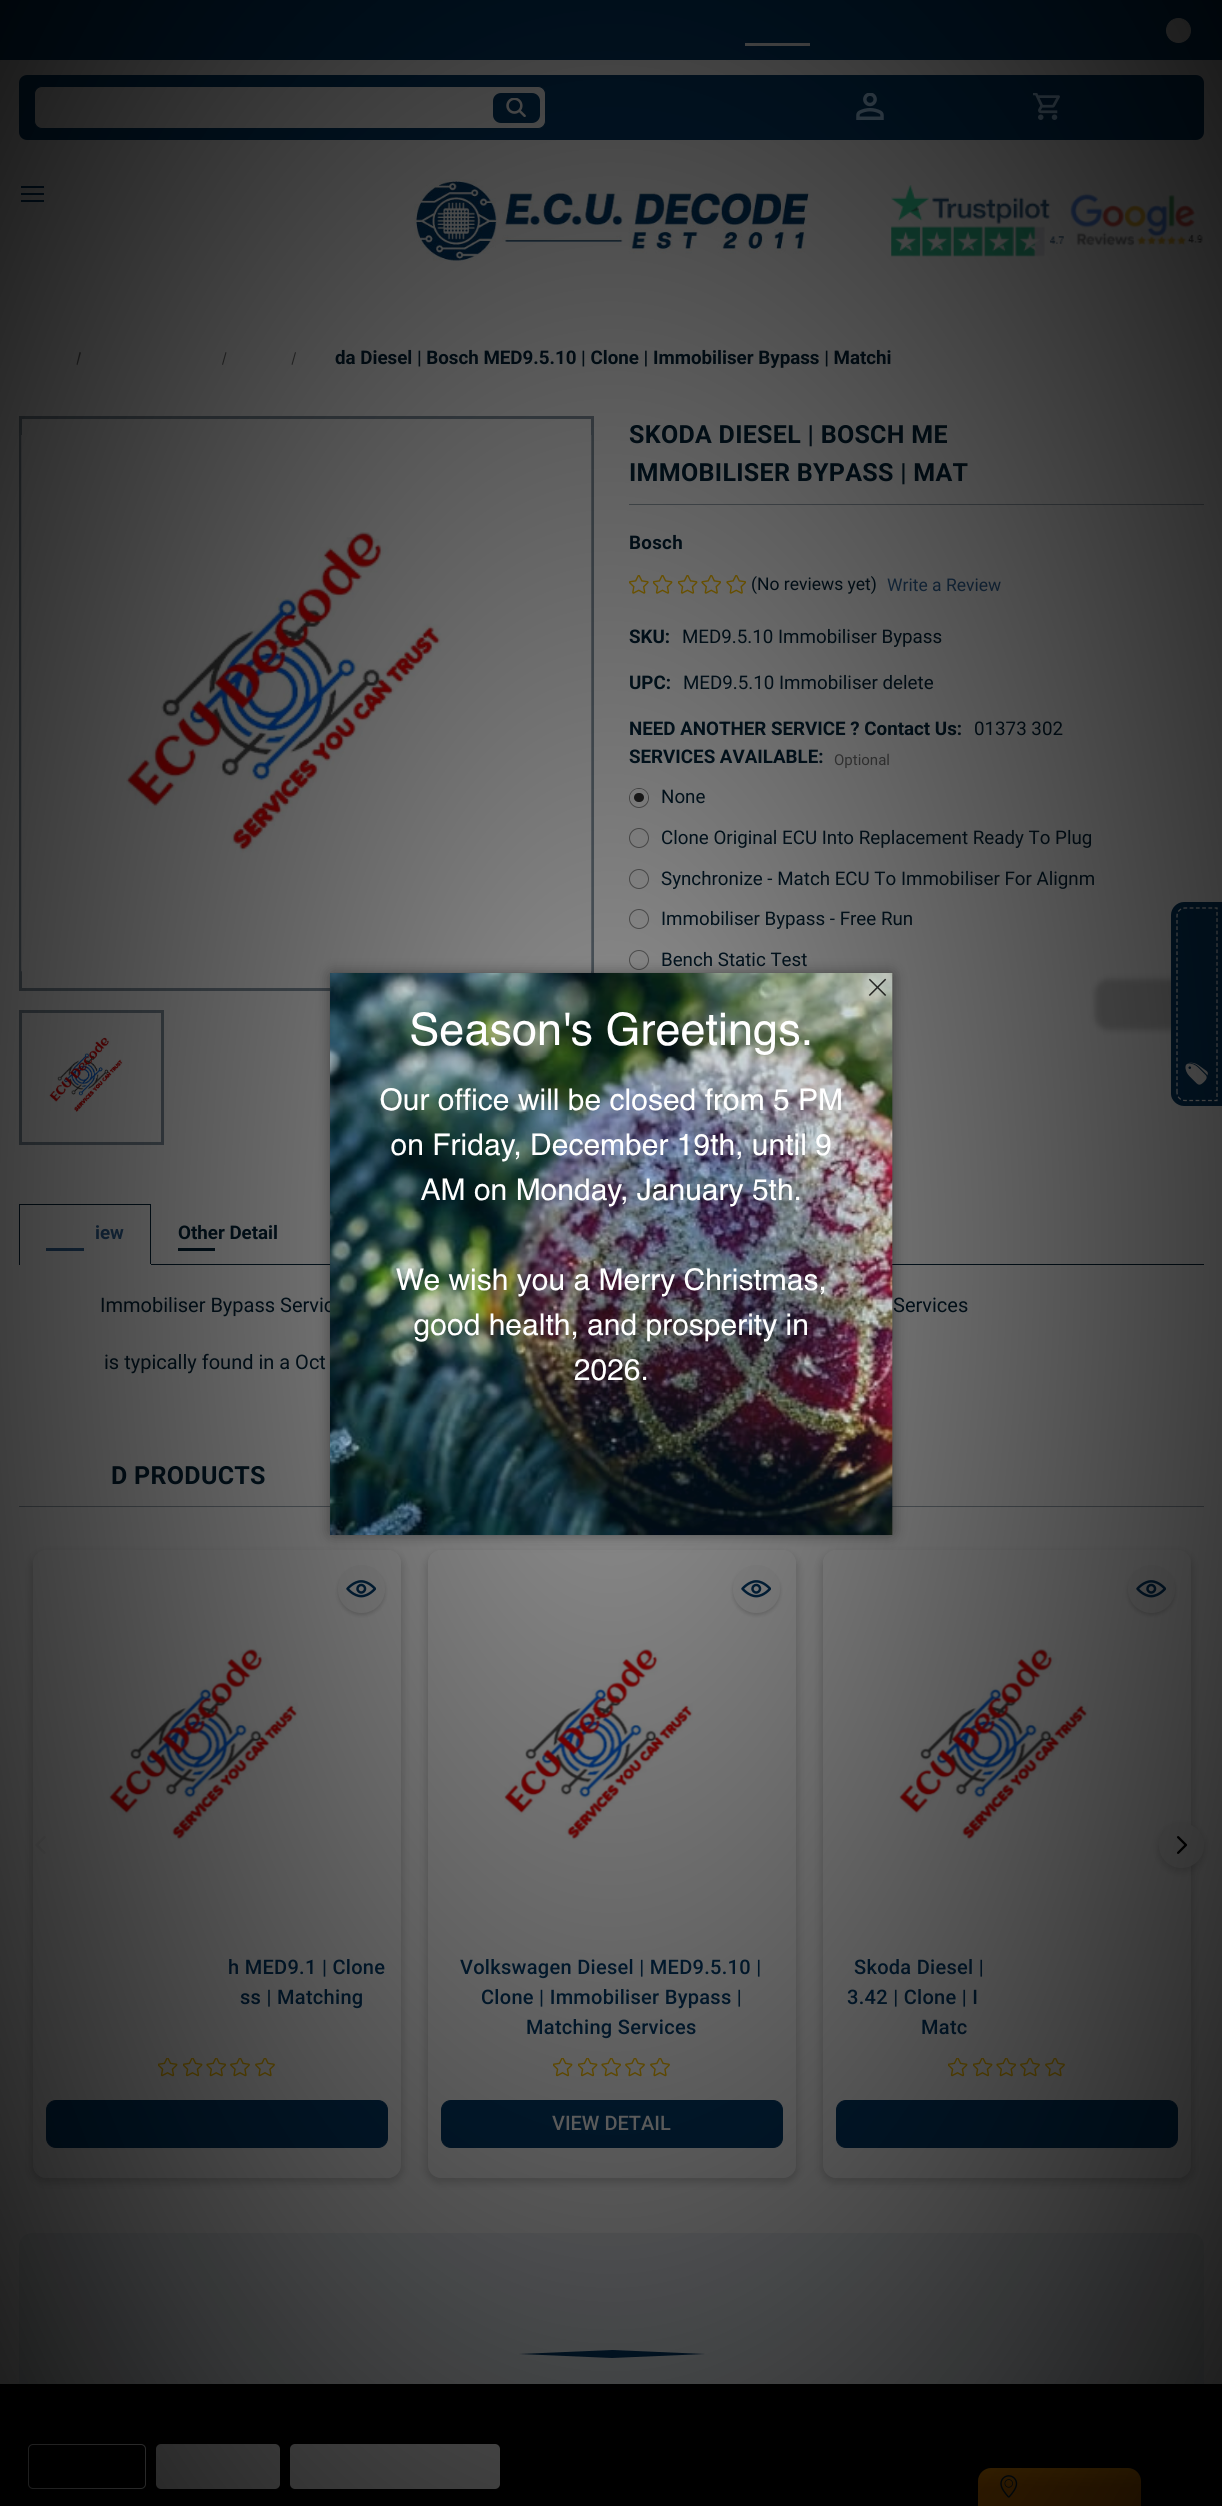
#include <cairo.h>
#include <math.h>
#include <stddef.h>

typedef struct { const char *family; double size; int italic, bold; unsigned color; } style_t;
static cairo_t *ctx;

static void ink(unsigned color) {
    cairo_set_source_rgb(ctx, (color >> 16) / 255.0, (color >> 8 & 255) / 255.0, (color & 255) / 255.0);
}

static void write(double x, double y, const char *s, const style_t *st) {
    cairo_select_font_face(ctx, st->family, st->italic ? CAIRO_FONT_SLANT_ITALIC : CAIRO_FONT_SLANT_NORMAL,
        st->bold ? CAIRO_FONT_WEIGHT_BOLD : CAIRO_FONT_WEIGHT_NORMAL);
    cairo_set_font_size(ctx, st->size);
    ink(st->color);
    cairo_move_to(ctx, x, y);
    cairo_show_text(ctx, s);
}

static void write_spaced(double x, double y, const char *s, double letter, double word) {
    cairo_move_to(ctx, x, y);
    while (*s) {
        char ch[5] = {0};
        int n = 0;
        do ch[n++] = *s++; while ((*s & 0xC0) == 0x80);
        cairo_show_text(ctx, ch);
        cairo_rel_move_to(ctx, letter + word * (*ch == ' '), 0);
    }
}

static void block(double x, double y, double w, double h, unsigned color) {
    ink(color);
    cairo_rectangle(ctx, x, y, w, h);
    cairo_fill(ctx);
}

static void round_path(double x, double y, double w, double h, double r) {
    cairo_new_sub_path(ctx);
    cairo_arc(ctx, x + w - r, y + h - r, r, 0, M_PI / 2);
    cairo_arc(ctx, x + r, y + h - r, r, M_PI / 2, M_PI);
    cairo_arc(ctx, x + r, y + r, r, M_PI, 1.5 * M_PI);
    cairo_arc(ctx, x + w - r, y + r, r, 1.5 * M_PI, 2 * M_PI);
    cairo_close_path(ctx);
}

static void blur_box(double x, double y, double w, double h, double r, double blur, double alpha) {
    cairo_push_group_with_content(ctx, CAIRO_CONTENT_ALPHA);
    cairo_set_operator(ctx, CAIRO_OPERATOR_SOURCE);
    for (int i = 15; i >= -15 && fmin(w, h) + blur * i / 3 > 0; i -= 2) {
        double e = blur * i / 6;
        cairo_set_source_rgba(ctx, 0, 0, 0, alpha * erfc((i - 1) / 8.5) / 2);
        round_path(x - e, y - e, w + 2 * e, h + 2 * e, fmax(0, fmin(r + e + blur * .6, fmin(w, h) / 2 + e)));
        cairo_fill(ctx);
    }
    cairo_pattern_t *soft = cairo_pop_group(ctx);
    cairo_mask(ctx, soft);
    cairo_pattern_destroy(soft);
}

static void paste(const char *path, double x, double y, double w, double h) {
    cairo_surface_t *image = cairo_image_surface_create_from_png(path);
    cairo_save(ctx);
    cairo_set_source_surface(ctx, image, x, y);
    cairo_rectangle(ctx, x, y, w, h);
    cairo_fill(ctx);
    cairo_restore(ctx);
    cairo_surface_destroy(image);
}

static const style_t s1 = {"Roboto", 18.75, 0, 1, 0x02243a};
static const style_t s2 = {"Roboto", 17.5, 0, 0, 0x02243a};
static const style_t s3 = {"Roboto", 17.5, 0, 0, 0x33669a};
static const style_t s4 = {"Roboto", 18.75, 0, 0, 0x02243a};
static const style_t s5 = {"Roboto", 15, 0, 0, 0x757575};
static const style_t s6 = {"Roboto", 18.75, 0, 1, 0x33669a};
static const style_t s7 = {"Roboto", 20, 0, 0, 0x02243a};
static const style_t s8 = {"Roboto Medium", 20, 0, 0, 0xffffff};

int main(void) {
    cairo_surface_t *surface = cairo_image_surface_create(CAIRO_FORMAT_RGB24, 1222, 2506);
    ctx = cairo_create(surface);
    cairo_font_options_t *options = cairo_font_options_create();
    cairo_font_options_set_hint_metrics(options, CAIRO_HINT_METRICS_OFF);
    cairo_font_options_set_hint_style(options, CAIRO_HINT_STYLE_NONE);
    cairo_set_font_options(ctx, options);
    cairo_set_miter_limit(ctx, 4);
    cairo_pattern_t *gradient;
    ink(0xffffff);
    cairo_paint(ctx);
    block(0, 0, 1222, 60, 0x023d6e);
    ink(0xffffff);
    cairo_arc(ctx, 1178.5, 30.5, 12, 0, 2 * M_PI);
    cairo_fill_preserve(ctx);
    cairo_set_line_width(ctx, 1);
    cairo_stroke(ctx);
    block(745, 43, 65, 3, 0xffffff);
    ink(0x023d6e);
    round_path(19, 75, 1185, 65, 8);
    cairo_fill(ctx);
    ink(0xffffff);
    round_path(34.5, 86.5, 511, 42, 7.5);
    cairo_fill_preserve(ctx);
    ink(0x023d6e);
    cairo_stroke(ctx);
    round_path(493, 93, 47, 30, 8);
    cairo_fill(ctx);
    paste("pic3.png", 506, 98, 20, 19);
    paste("pic4.png", 856, 93, 28, 27);
    paste("pic5.png", 1033, 93, 27, 27);
    block(21, 186, 23, 2, 0x023d6e);
    block(21, 193, 23, 2, 0x023d6e);
    block(21, 200, 23, 2, 0x023d6e);
    paste("pic6.png", 414, 179, 395, 82);
    paste("pic7.png", 891, 185, 173, 72);
    paste("pic8.png", 1070, 193, 133, 53);
    ink(0x757575);
    cairo_new_path(ctx);
    cairo_move_to(ctx, 79.5, 352);
    cairo_line_to(ctx, 81, 352.5);
    cairo_line_to(ctx, 77.5, 365);
    cairo_line_to(ctx, 76.5, 364.5);
    cairo_close_path(ctx);
    cairo_fill(ctx);
    cairo_new_path(ctx);
    cairo_move_to(ctx, 225.5, 352);
    cairo_line_to(ctx, 226.5, 352.5);
    cairo_line_to(ctx, 223, 365);
    cairo_line_to(ctx, 222, 364.5);
    cairo_close_path(ctx);
    cairo_fill(ctx);
    cairo_new_path(ctx);
    cairo_move_to(ctx, 295, 352);
    cairo_line_to(ctx, 296, 352.5);
    cairo_line_to(ctx, 292.5, 365);
    cairo_line_to(ctx, 291.5, 364.5);
    cairo_close_path(ctx);
    cairo_fill(ctx);
    write(335, 364, "da Diesel | Bosch MED9.5.10 | Clone | Immobiliser Bypass | Matchi", &s1);
    cairo_rectangle(ctx, 20.5, 417.5, 572, 572);
    ink(0x8898a5);
    cairo_set_line_width(ctx, 3);
    cairo_stroke(ctx);
    paste("pic9.png", 21, 435, 571, 537);
    cairo_rectangle(ctx, 20.5, 1011.5, 142, 132);
    cairo_stroke(ctx);
    paste("pic10.png", 49, 1037, 74, 75);
    block(629, 504, 575, 1, 0x9da9b3);
    cairo_set_font_size(ctx, 25);
    ink(0x02243a);
    write_spaced(629, 443, "SKODA DIESEL | BOSCH ME", 0.3, 0);
    write_spaced(629, 481, "IMMOBILISER BYPASS | MAT", 0.3, 0);
    cairo_set_font_size(ctx, 18.75);
    write_spaced(629, 549, "Bosch", 0.3, 0);
    paste("pic11.png", 629, 575, 20, 19);
    paste("pic12.png", 653, 575, 20, 19);
    paste("pic12.png", 678, 575, 20, 19);
    paste("pic13.png", 701, 575, 20, 19);
    paste("pic13.png", 726, 575, 20, 19);
    write(751, 590, "(No reviews yet)", &s2);
    write(887, 591, "Write a Review", &s3);
    write(629, 643, "SKU:", &s1);
    write(682, 643, "MED9.5.10 Immobiliser Bypass", &s4);
    write(629, 689, "UPC:", &s1);
    write(683, 689, "MED9.5.10 Immobiliser delete", &s4);
    write(629, 735, "NEED ANOTHER SERVICE ? Contact Us:", &s1);
    write(974, 735, "01373 302", &s4);
    write(629, 763, "SERVICES AVAILABLE:", &s1);
    write(834, 765, "Optional", &s5);
    cairo_new_path(ctx);
    cairo_arc(ctx, 639, 798, 9.5, 0, 2 * M_PI);
    ink(0x8f8f8f);
    cairo_set_line_width(ctx, 1);
    cairo_stroke(ctx);
    ink(0x333333);
    round_path(632, 791, 14, 13, 6.5);
    cairo_fill_preserve(ctx);
    ink(0xffffff);
    cairo_set_line_width(ctx, 4);
    cairo_stroke(ctx);
    write(661, 803, "None", &s4);
    cairo_new_path(ctx);
    cairo_arc(ctx, 639, 838, 9.5, 0, 2 * M_PI);
    ink(0x8f8f8f);
    cairo_set_line_width(ctx, 1);
    cairo_stroke(ctx);
    write(661, 844, "Clone Original ECU Into Replacement Ready To Plug", &s4);
    cairo_new_path(ctx);
    cairo_arc(ctx, 639, 879, 9.5, 0, 2 * M_PI);
    ink(0x8f8f8f);
    cairo_stroke(ctx);
    write(661, 885, "Synchronize - Match ECU To Immobiliser For Alignm", &s4);
    cairo_new_path(ctx);
    cairo_arc(ctx, 639, 919, 9.5, 0, 2 * M_PI);
    ink(0x8f8f8f);
    cairo_stroke(ctx);
    write(661, 925, "Immobiliser Bypass - Free Run", &s4);
    cairo_new_path(ctx);
    cairo_arc(ctx, 639, 960, 9.5, 0, 2 * M_PI);
    ink(0x8f8f8f);
    cairo_stroke(ctx);
    write(661, 966, "Bench Static Test", &s4);
    block(151, 1264, 1053, 1, 0x02243a);
    block(19, 1204, 132, 1, 0x02243a);
    block(150, 1204, 1, 61, 0x02243a);
    block(150, 1264, 1, 1, 0xffffff);
    block(19, 1204, 1, 61, 0x02243a);
    write(95, 1239, "iew", &s6);
    block(46, 1248, 38, 3, 0x33669a);
    write(178, 1239, "Other Detail", &s1);
    block(178, 1248, 37, 3, 0x02243a);
    write(100, 1312, "Immobiliser Bypass Servic", &s7);
    write(893, 1312, "Services", &s7);
    write(104, 1369, "is typically found in a Oct", &s7);
    block(19, 1506, 1185, 1, 0x9da9b3);
    cairo_select_font_face(ctx, "Roboto", CAIRO_FONT_SLANT_NORMAL, CAIRO_FONT_WEIGHT_BOLD);
    cairo_set_font_size(ctx, 25);
    ink(0x02243a);
    write_spaced(111, 1484, "D PRODUCTS", 0.3, 0);
    cairo_save(ctx);
    cairo_set_fill_rule(ctx, CAIRO_FILL_RULE_EVEN_ODD);
    cairo_new_path(ctx);
    cairo_move_to(ctx, 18, 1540);
    cairo_line_to(ctx, 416, 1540);
    cairo_line_to(ctx, 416, 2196);
    cairo_line_to(ctx, 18, 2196);
    cairo_close_path(ctx);
    cairo_move_to(ctx, 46, 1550);
    cairo_line_to(ctx, 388, 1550);
    cairo_curve_to(ctx, 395, 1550, 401, 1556, 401, 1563);
    cairo_line_to(ctx, 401, 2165);
    cairo_curve_to(ctx, 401, 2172, 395, 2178, 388, 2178);
    cairo_line_to(ctx, 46, 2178);
    cairo_curve_to(ctx, 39, 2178, 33, 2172, 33, 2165);
    cairo_line_to(ctx, 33, 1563);
    cairo_curve_to(ctx, 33, 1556, 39, 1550, 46, 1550);
    cairo_close_path(ctx);
    cairo_clip(ctx);
    ink(0x707070);
    blur_box(31, 1553, 372, 630, 14, 4, 0.3);
    cairo_restore(ctx);
    paste("pic14.png", 35, 1836, 11, 18);
    ink(0x707070);
    blur_box(1159, 1826, 45, 45, 22.5, 4, 0.3);
    cairo_save(ctx);
    cairo_set_fill_rule(ctx, CAIRO_FILL_RULE_EVEN_ODD);
    cairo_new_path(ctx);
    cairo_move_to(ctx, 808, 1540);
    cairo_line_to(ctx, 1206, 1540);
    cairo_line_to(ctx, 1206, 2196);
    cairo_line_to(ctx, 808, 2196);
    cairo_close_path(ctx);
    cairo_move_to(ctx, 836, 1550);
    cairo_line_to(ctx, 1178, 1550);
    cairo_curve_to(ctx, 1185, 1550, 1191, 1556, 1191, 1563);
    cairo_line_to(ctx, 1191, 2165);
    cairo_curve_to(ctx, 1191, 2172, 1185, 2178, 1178, 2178);
    cairo_line_to(ctx, 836, 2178);
    cairo_curve_to(ctx, 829, 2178, 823, 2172, 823, 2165);
    cairo_line_to(ctx, 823, 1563);
    cairo_curve_to(ctx, 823, 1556, 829, 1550, 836, 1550);
    cairo_close_path(ctx);
    cairo_clip(ctx);
    blur_box(821, 1553, 372, 630, 14, 4, 0.3);
    cairo_restore(ctx);
    ink(0xf8f8f8);
    cairo_arc(ctx, 1181.5, 1845.5, 22.5, 0, 2 * M_PI);
    cairo_fill(ctx);
    paste("pic15.png", 1177, 1836, 11, 18);
    ink(0x707070);
    blur_box(338, 1568, 47, 47, 23.5, 2, 0.3);
    ink(0xf8f8f8);
    round_path(338, 1565, 47, 48, 23.5);
    cairo_fill(ctx);
    paste("pic16.png", 346, 1580, 30, 18);
    paste("pic17.png", 109, 1648, 189, 192);
    cairo_select_font_face(ctx, "Roboto Medium", CAIRO_FONT_SLANT_NORMAL, CAIRO_FONT_WEIGHT_NORMAL);
    cairo_set_font_size(ctx, 20);
    ink(0x023d6e);
    write_spaced(228, 1974, "h MED9.1 | Clone", 0.3, 0);
    write_spaced(240, 2004, "ss | Matching", 0.3, 0);
    paste("pic18.png", 158, 2058, 20, 19);
    paste("pic18.png", 183, 2058, 20, 19);
    paste("pic19.png", 206, 2058, 20, 19);
    paste("pic20.png", 230, 2058, 20, 19);
    paste("pic20.png", 255, 2058, 20, 19);
    round_path(46.5, 2100.5, 341, 47, 9.5);
    cairo_fill_preserve(ctx);
    cairo_stroke(ctx);
    cairo_save(ctx);
    cairo_set_fill_rule(ctx, CAIRO_FILL_RULE_EVEN_ODD);
    cairo_new_path(ctx);
    cairo_move_to(ctx, 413, 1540);
    cairo_line_to(ctx, 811, 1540);
    cairo_line_to(ctx, 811, 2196);
    cairo_line_to(ctx, 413, 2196);
    cairo_close_path(ctx);
    cairo_move_to(ctx, 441, 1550);
    cairo_line_to(ctx, 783, 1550);
    cairo_curve_to(ctx, 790, 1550, 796, 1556, 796, 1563);
    cairo_line_to(ctx, 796, 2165);
    cairo_curve_to(ctx, 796, 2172, 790, 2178, 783, 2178);
    cairo_line_to(ctx, 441, 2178);
    cairo_curve_to(ctx, 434, 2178, 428, 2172, 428, 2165);
    cairo_line_to(ctx, 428, 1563);
    cairo_curve_to(ctx, 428, 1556, 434, 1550, 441, 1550);
    cairo_close_path(ctx);
    cairo_clip(ctx);
    ink(0x707070);
    blur_box(426, 1553, 372, 630, 14, 4, 0.3);
    cairo_restore(ctx);
    ink(0x707070);
    blur_box(733, 1568, 47, 47, 23.5, 2, 0.3);
    ink(0xf8f8f8);
    round_path(733, 1565, 47, 48, 23.5);
    cairo_fill(ctx);
    paste("pic16.png", 741, 1580, 30, 18);
    paste("pic17.png", 504, 1648, 189, 192);
    ink(0x023d6e);
    write_spaced(460, 1974, "Volkswagen Diesel | MED9.5.10 |", 0.3, 0);
    write_spaced(481, 2004, "Clone | Immobiliser Bypass |", 0.3, 0);
    write_spaced(526, 2034, "Matching Services", 0.3, 0);
    paste("pic18.png", 553, 2058, 20, 19);
    paste("pic18.png", 578, 2058, 20, 19);
    paste("pic19.png", 601, 2058, 20, 19);
    paste("pic20.png", 625, 2058, 20, 19);
    paste("pic20.png", 650, 2058, 20, 19);
    round_path(441.5, 2100.5, 341, 47, 9.5);
    cairo_fill_preserve(ctx);
    cairo_stroke(ctx);
    write(552, 2130, "VIEW DETAIL", &s8);
    ink(0x707070);
    blur_box(1128, 1568, 47, 47, 23.5, 2, 0.3);
    ink(0xf8f8f8);
    round_path(1128, 1565, 47, 48, 23.5);
    cairo_fill(ctx);
    paste("pic16.png", 1136, 1580, 30, 18);
    paste("pic17.png", 899, 1648, 189, 192);
    ink(0x023d6e);
    write_spaced(854, 1974, "Skoda Diesel |", 0.3, 0);
    write_spaced(847, 2004, "3.42 | Clone | I", 0.3, 0);
    write_spaced(921, 2034, "Matc", 0.3, 0);
    paste("pic18.png", 948, 2058, 20, 19);
    paste("pic18.png", 973, 2058, 20, 19);
    paste("pic19.png", 996, 2058, 20, 19);
    paste("pic20.png", 1020, 2058, 20, 19);
    paste("pic20.png", 1045, 2058, 20, 19);
    round_path(836.5, 2100.5, 341, 47, 9.5);
    cairo_fill_preserve(ctx);
    cairo_stroke(ctx);
    ink(0xebf0f4);
    round_path(19, 2233, 1185, 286, 13);
    cairo_fill(ctx);
    ink(0x023d6e);
    cairo_new_path(ctx);
    cairo_move_to(ctx, 705, 2354);
    cairo_line_to(ctx, 612, 2358);
    cairo_line_to(ctx, 518, 2354);
    cairo_line_to(ctx, 612, 2350);
    cairo_close_path(ctx);
    cairo_fill(ctx);
    ink(0x000000);
    blur_box(1095, 979, 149, 51, 13, 3, 0.2);
    ink(0x043d6b);
    cairo_new_path(ctx);
    cairo_move_to(ctx, 1171, 1094);
    cairo_line_to(ctx, 1171, 915);
    cairo_curve_to(ctx, 1171, 908, 1177, 902, 1184, 902);
    cairo_line_to(ctx, 1222, 902);
    cairo_line_to(ctx, 1222, 1106);
    cairo_line_to(ctx, 1184, 1106);
    cairo_curve_to(ctx, 1177, 1106, 1171, 1100, 1171, 1094);
    cairo_close_path(ctx);
    cairo_fill(ctx);
    cairo_new_path(ctx);
    cairo_move_to(ctx, 1177, 1092.5);
    cairo_line_to(ctx, 1177, 916);
    cairo_curve_to(ctx, 1177, 911.5, 1180.5, 908, 1185, 908);
    cairo_line_to(ctx, 1217, 908);
    cairo_line_to(ctx, 1217, 1100.5);
    cairo_line_to(ctx, 1185, 1100.5);
    cairo_curve_to(ctx, 1180.5, 1100.5, 1177, 1097, 1177, 1092.5);
    cairo_close_path(ctx);
    ink(0xffffff);
    cairo_set_line_width(ctx, 1.2);
    cairo_set_dash(ctx, (double[]){3.75, 2.5}, 2, 0);
    cairo_stroke(ctx);
    paste("pic21.png", 1185, 1062, 23, 23);
    block(0, 2384, 1222, 122, 0x000000);
    round_path(28.5, 2444.5, 117, 44, 4.5);
    ink(0xffffff);
    cairo_set_line_width(ctx, 1);
    cairo_set_dash(ctx, NULL, 0, 0);
    cairo_stroke(ctx);
    round_path(156, 2444, 124, 45, 5);
    cairo_fill(ctx);
    round_path(290, 2444, 210, 45, 5);
    cairo_fill(ctx);
    gradient = cairo_pattern_create_linear(1059, 2468, 1059, 2506);
    cairo_pattern_add_color_stop_rgba(gradient, 0, 1, 0.6, 0, 1);
    cairo_pattern_add_color_stop_rgba(gradient, 0.5, 0.882, 0.482, 0, 1);
    cairo_set_source(ctx, gradient);
    cairo_pattern_destroy(gradient);
    cairo_new_path(ctx);
    cairo_move_to(ctx, 991, 2468);
    cairo_line_to(ctx, 1128, 2468);
    cairo_curve_to(ctx, 1135, 2468, 1141, 2474, 1141, 2481);
    cairo_line_to(ctx, 1141, 2506);
    cairo_line_to(ctx, 978, 2506);
    cairo_line_to(ctx, 978, 2481);
    cairo_curve_to(ctx, 978, 2474, 984, 2468, 991, 2468);
    cairo_close_path(ctx);
    cairo_fill(ctx);
    paste("pic22.png", 1000, 2475, 18, 23);
    gradient = cairo_pattern_create_radial(0, 0, 0, 0, 0, 1);
    cairo_pattern_set_matrix(gradient, &(cairo_matrix_t){1.0 / 864, 0, 0, 1.0 / 1772, -1.0 * 611 / 864, -1.0 * 1253 / 1772});
    cairo_pattern_add_color_stop_rgba(gradient, 0, 0, 0, 0, 0.4);
    cairo_pattern_add_color_stop_rgba(gradient, 1, 0, 0, 0, 0.9);
    cairo_set_source(ctx, gradient);
    cairo_pattern_destroy(gradient);
    cairo_rectangle(ctx, 0, 0, 1222, 2506);
    cairo_fill(ctx);
    ink(0x000000);
    blur_box(330, 973, 563, 562, 2.5, 7, 0.4);
    paste("pic1.png", 330, 973, 563, 562);
    paste("pic2.png", 868, 978, 19, 18);
    cairo_surface_write_to_png(surface, "screenshot.png");
    cairo_font_options_destroy(options);
    cairo_destroy(ctx);
    cairo_surface_destroy(surface);
    return 0;
}
